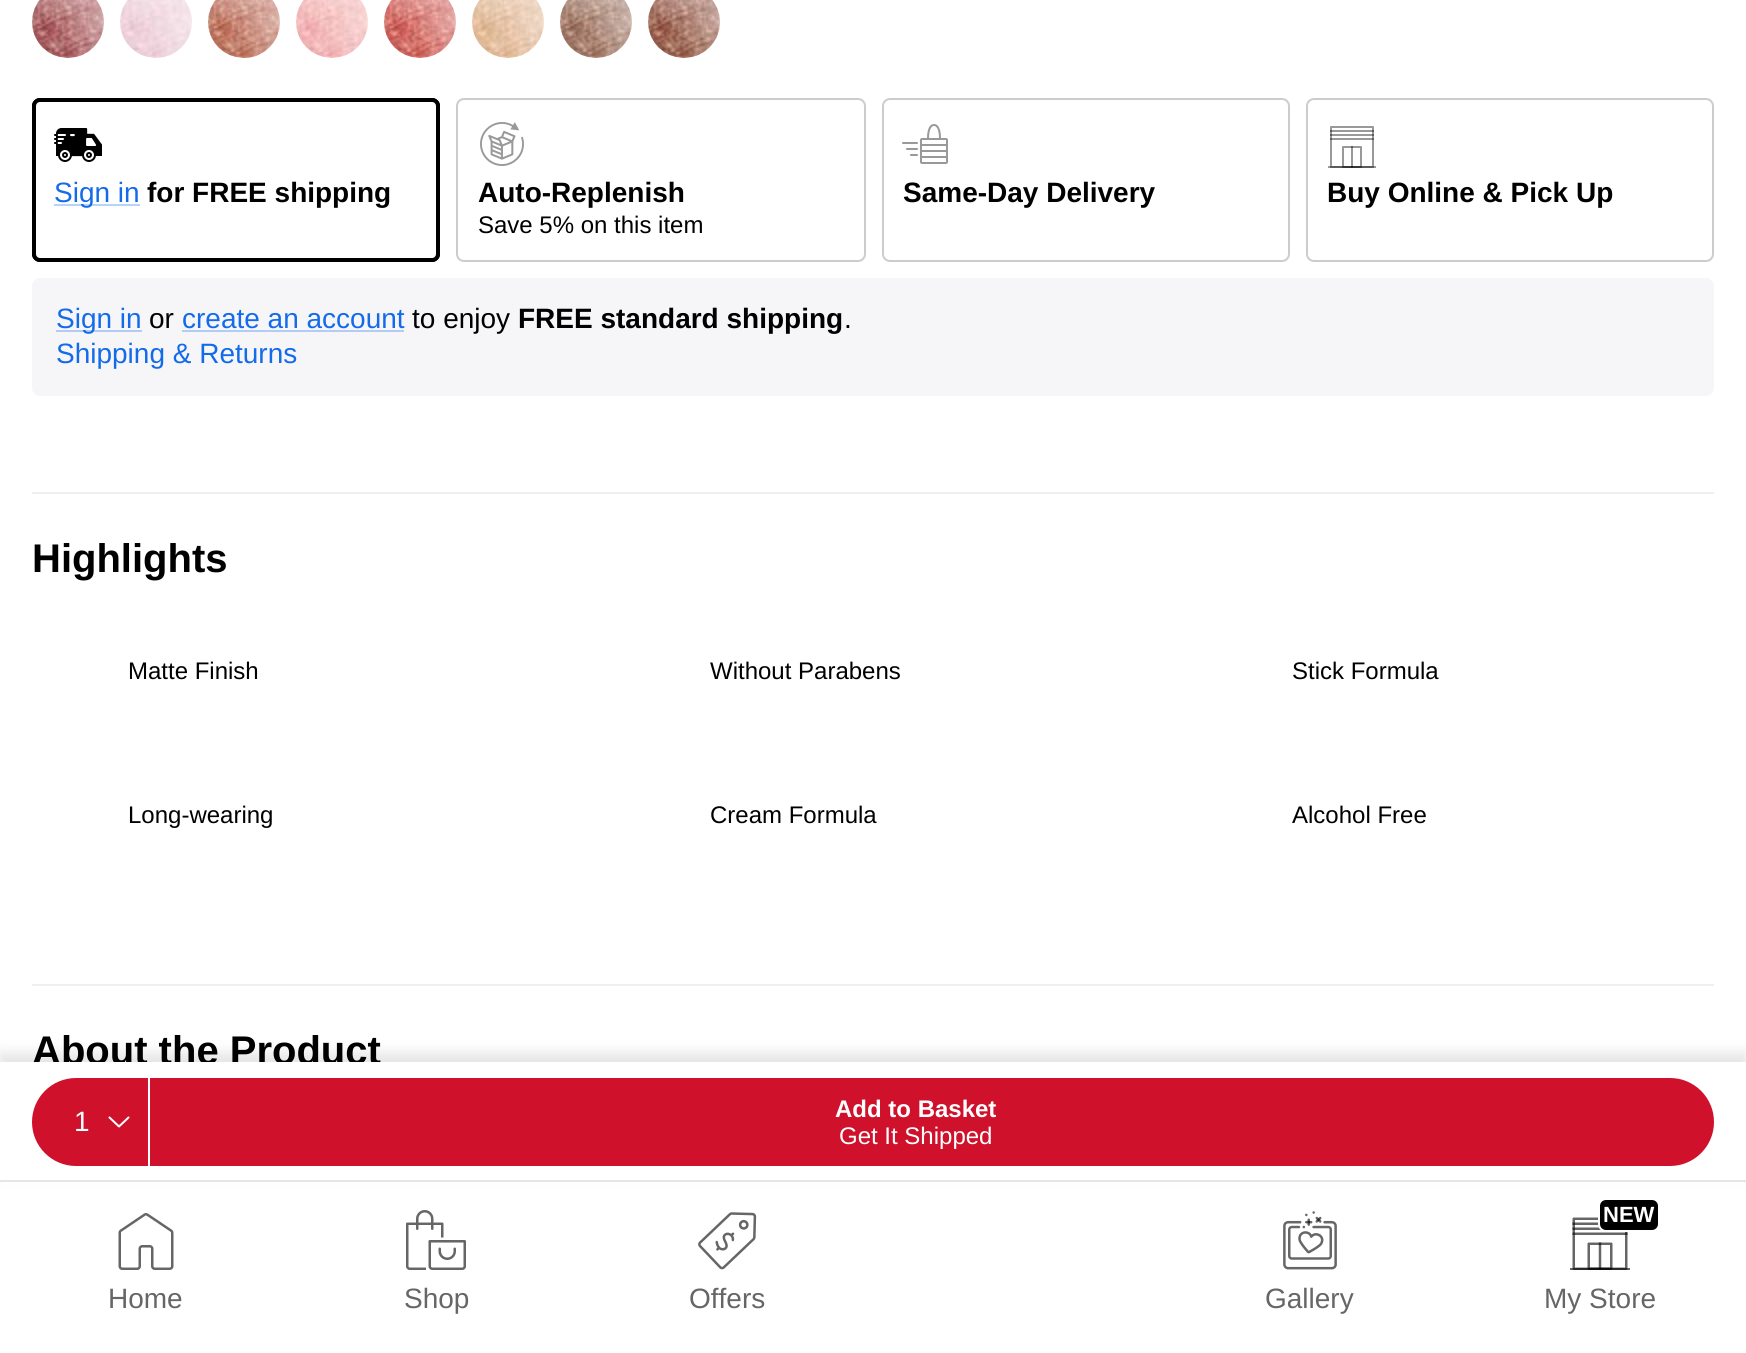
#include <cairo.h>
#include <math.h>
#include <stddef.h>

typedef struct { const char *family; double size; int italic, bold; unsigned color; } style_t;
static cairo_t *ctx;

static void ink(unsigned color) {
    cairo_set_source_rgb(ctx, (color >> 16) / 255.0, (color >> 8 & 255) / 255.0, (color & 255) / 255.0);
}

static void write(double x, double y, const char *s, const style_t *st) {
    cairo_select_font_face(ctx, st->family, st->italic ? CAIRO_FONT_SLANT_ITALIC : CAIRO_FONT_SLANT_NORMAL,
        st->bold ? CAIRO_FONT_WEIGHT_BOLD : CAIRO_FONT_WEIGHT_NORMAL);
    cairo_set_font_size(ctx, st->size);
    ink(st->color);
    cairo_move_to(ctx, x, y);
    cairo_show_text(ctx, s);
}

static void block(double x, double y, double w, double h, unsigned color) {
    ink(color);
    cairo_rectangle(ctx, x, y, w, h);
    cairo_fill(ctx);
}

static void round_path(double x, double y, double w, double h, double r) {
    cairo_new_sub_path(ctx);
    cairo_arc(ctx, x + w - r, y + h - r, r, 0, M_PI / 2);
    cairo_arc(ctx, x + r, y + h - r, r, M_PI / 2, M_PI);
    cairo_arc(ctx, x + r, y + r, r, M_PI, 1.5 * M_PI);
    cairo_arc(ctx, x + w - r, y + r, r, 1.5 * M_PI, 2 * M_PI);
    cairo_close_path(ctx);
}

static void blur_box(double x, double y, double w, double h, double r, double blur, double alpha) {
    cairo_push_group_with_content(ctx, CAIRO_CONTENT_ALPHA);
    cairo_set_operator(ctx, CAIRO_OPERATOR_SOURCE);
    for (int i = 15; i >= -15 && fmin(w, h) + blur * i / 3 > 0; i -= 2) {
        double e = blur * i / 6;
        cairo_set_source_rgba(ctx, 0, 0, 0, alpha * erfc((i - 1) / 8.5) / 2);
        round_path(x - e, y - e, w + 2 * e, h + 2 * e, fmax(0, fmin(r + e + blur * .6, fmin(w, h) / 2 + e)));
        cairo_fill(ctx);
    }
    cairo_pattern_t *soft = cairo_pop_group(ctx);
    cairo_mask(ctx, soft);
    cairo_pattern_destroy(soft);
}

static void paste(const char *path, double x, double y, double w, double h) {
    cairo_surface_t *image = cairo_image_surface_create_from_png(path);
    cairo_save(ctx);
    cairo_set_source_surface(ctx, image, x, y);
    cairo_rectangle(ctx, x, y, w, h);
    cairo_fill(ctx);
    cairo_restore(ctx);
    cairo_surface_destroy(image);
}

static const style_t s1 = {"Liberation Sans", 28, 0, 0, 0x136bea};
static const style_t s2 = {"Liberation Sans", 28, 0, 1, 0x000000};
static const style_t s3 = {"Liberation Sans", 28, 0, 0, 0x000000};
static const style_t s4 = {"Liberation Sans", 24, 0, 0, 0x000000};
static const style_t s5 = {"Liberation Sans", 40, 0, 1, 0x000000};
static const style_t s6 = {"Liberation Sans", 28, 0, 0, 0xffffff};
static const style_t s7 = {"Liberation Sans", 24, 0, 1, 0xffffff};
static const style_t s8 = {"Liberation Sans", 24, 0, 0, 0xffffff};
static const style_t s9 = {"Liberation Sans", 28, 0, 0, 0x666666};
static const style_t s10 = {"Liberation Sans", 22, 0, 1, 0xffffff};

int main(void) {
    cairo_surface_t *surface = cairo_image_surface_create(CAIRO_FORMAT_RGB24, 1746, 1353);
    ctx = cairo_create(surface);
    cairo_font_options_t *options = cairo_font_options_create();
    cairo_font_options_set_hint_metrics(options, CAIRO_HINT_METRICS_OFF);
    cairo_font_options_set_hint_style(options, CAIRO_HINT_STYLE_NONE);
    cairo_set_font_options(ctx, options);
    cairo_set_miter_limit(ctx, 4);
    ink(0xffffff);
    cairo_paint(ctx);
    paste("pic1.png", 32, 0, 72, 58);
    paste("pic2.png", 120, 0, 72, 58);
    paste("pic3.png", 208, 0, 72, 58);
    paste("pic4.png", 296, 0, 72, 58);
    paste("pic5.png", 384, 0, 72, 58);
    paste("pic6.png", 472, 0, 72, 58);
    paste("pic7.png", 560, 0, 72, 58);
    paste("pic8.png", 648, 0, 72, 58);
    round_path(33, 99, 406, 162, 7);
    ink(0x000000);
    cairo_stroke(ctx);
    paste("pic9.png", 54, 128, 48, 34);
    block(54, 204, 86, 2, 0xb8d3f9);
    round_path(34, 100, 404, 160, 6);
    ink(0x000000);
    cairo_set_line_width(ctx, 4);
    cairo_stroke(ctx);
    write(54, 202, "Sign in", &s1);
    write(147, 202, "for FREE shipping", &s2);
    ink(0xf6f6f8);
    round_path(32, 278, 1682, 118, 8);
    cairo_fill(ctx);
    block(56, 330, 86, 2, 0xb2ccf4);
    write(56, 328, "Sign in", &s1);
    write(149, 328, "or", &s3);
    write(182, 328, "create an account", &s1);
    block(182, 330, 222, 2, 0xb2ccf4);
    write(412, 328, "to enjoy", &s3);
    write(518, 328, "FREE standard shipping", &s2);
    write(844, 328, ".", &s3);
    write(56, 363, "Shipping & Returns", &s1);
    round_path(457, 99, 408, 162, 7);
    ink(0xcccccc);
    cairo_set_line_width(ctx, 2);
    cairo_stroke(ctx);
    paste("pic10.png", 480, 122, 44, 44);
    write(478, 202, "Auto-Replenish", &s2);
    write(478, 233, "Save 5% on this item", &s4);
    round_path(883, 99, 406, 162, 7);
    ink(0xcccccc);
    cairo_stroke(ctx);
    paste("pic11.png", 902, 124, 46, 40);
    write(903, 202, "Same-Day Delivery", &s2);
    round_path(1307, 99, 406, 162, 7);
    ink(0xcccccc);
    cairo_stroke(ctx);
    paste("pic12.png", 1328, 126, 48, 42);
    write(1327, 202, "Buy Online & Pick Up", &s2);
    ink(0x000000);
    blur_box(0, 1054, 1746, 120, 0, 8, 0.12);
    write(32, 1064, "About the Product", &s5);
    block(0, 1062, 1746, 118, 0xffffff);
    ink(0xcf112c);
    round_path(32, 1078, 1682, 88, 44);
    cairo_fill(ctx);
    block(148, 1078, 2, 88, 0xffffff);
    write(74, 1131, "1", &s6);
    cairo_new_path(ctx);
    cairo_move_to(ctx, 109.5, 1117.5);
    cairo_line_to(ctx, 119, 1126.5);
    cairo_line_to(ctx, 128.5, 1117.5);
    cairo_set_line_cap(ctx, CAIRO_LINE_CAP_ROUND);
    cairo_set_line_join(ctx, CAIRO_LINE_JOIN_ROUND);
    cairo_stroke(ctx);
    write(835, 1117, "Add to Basket", &s7);
    write(839, 1144, "Get It Shipped", &s8);
    block(32, 492, 1682, 2, 0xefefef);
    write(32, 572, "Highlights", &s5);
    write(128, 679, "Matte Finish", &s4);
    write(710, 679, "Without Parabens", &s4);
    write(1292, 679, "Stick Formula", &s4);
    write(128, 823, "Long-wearing", &s4);
    write(710, 823, "Cream Formula", &s4);
    write(1292, 823, "Alcohol Free", &s4);
    block(32, 984, 1682, 2, 0xefefef);
    block(0, 1180, 1746, 2, 0xe6e6e6);
    block(2, 1182, 1742, 3, 0xffffff);
    paste("pic13.png", 118, 1213, 56, 57);
    write(108, 1308, "Home", &s9);
    paste("pic14.png", 406, 1210, 60, 60);
    write(404, 1308, "Shop", &s9);
    paste("pic15.png", 698, 1212, 59, 58);
    write(689, 1308, "Offers", &s9);
    paste("pic16.png", 1283, 1211, 54, 59);
    write(1265, 1308, "Gallery", &s9);
    paste("pic17.png", 1570, 1217, 60, 53);
    ink(0x000000);
    round_path(1599, 1199, 60, 32, 7);
    cairo_fill_preserve(ctx);
    ink(0xffffff);
    cairo_set_line_cap(ctx, CAIRO_LINE_CAP_BUTT);
    cairo_set_line_join(ctx, CAIRO_LINE_JOIN_MITER);
    cairo_stroke(ctx);
    write(1603, 1222, "NEW", &s10);
    write(1544, 1308, "My Store", &s9);
    cairo_surface_write_to_png(surface, "screenshot.png");
    cairo_font_options_destroy(options);
    cairo_destroy(ctx);
    cairo_surface_destroy(surface);
    return 0;
}
